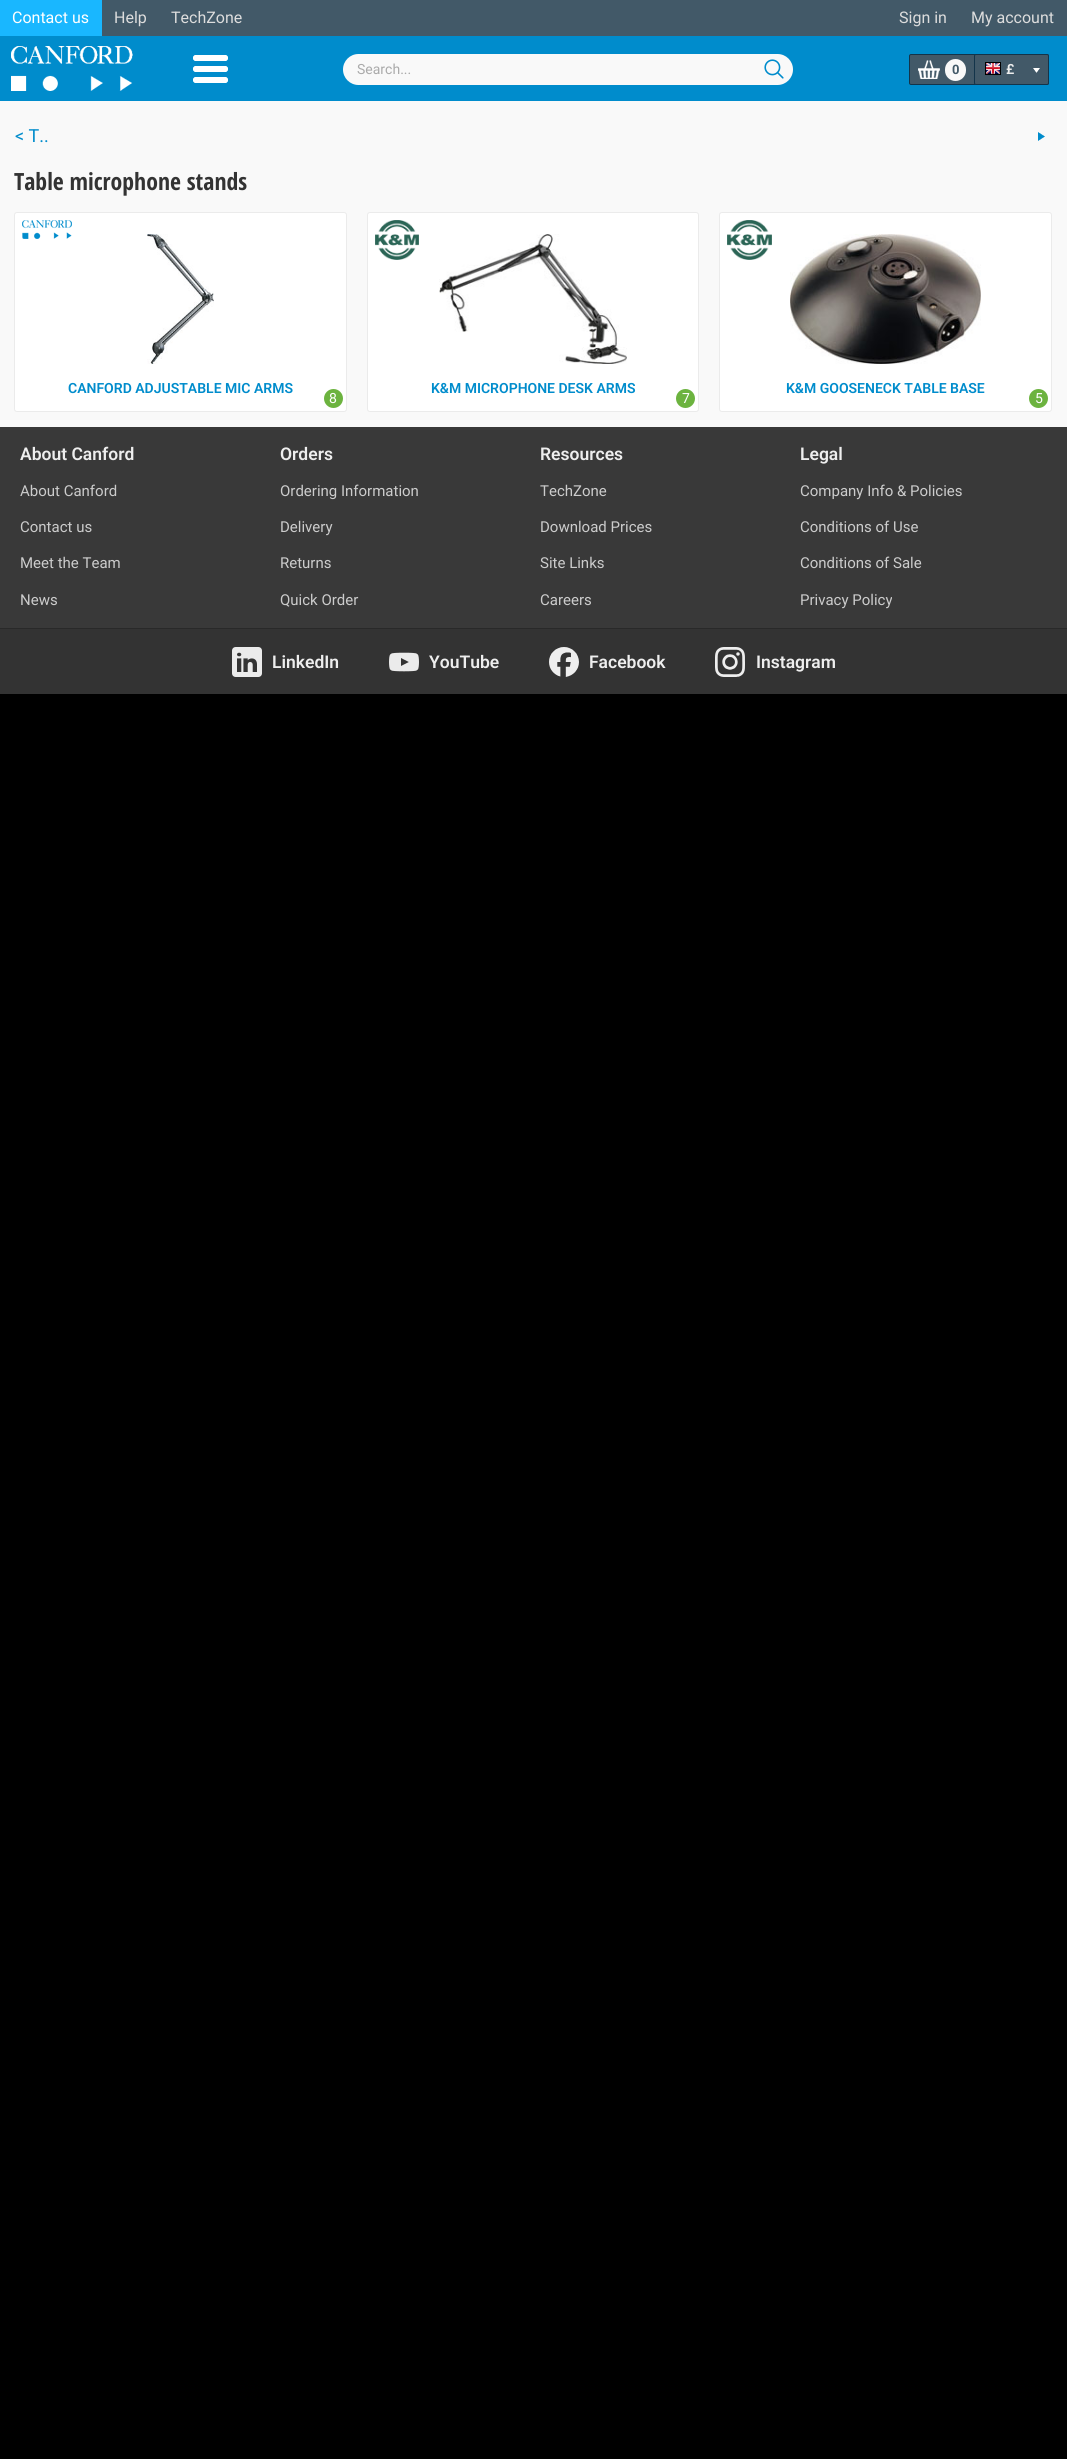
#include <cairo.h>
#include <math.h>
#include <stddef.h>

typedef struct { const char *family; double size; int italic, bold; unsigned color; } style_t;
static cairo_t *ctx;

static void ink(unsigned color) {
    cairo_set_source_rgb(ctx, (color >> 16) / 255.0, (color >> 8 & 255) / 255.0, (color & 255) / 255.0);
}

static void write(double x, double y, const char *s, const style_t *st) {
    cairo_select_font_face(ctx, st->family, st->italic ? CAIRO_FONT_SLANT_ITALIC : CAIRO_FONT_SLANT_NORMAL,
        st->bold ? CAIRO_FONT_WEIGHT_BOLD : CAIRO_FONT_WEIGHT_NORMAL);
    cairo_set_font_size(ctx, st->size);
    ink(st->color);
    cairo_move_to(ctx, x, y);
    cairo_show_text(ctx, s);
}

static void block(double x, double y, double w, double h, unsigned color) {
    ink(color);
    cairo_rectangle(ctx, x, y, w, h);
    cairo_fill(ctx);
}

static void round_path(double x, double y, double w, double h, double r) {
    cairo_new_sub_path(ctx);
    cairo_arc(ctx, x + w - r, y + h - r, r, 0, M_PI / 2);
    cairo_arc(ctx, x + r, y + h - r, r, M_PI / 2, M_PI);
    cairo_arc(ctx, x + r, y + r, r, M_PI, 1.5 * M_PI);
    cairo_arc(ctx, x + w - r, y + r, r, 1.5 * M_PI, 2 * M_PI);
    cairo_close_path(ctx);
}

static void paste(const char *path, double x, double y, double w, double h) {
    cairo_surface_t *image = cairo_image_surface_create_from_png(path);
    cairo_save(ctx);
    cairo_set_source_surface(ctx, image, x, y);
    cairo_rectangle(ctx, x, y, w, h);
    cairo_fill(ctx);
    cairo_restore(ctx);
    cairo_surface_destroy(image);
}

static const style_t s1 = {"Roboto", 16, 0, 0, 0xffffff};
static const style_t s2 = {"Roboto", 16, 0, 0, 0xdddddd};
static const style_t s3 = {"Roboto", 14, 0, 0, 0xaaaaaa};
static const style_t s4 = {"Roboto", 13, 0, 1, 0x425968};
static const style_t s5 = {"Roboto SemiBold", 14, 0, 0, 0xeeeeee};
static const style_t s6 = {"Roboto", 18, 0, 0, 0x008ccc};
static const style_t s7 = {"Open Sans Condensed", 23.75, 0, 1, 0x333333};
static const style_t s8 = {"Roboto SemiBold", 14, 0, 0, 0x008ccc};
static const style_t s9 = {"Roboto", 14, 0, 0, 0xffffff};
static const style_t s10 = {"Roboto SemiBold", 17.5, 0, 0, 0xeeeeee};
static const style_t s11 = {"Roboto", 15, 0, 0, 0xcccccc};

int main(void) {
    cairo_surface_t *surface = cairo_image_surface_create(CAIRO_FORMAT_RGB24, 1067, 2459);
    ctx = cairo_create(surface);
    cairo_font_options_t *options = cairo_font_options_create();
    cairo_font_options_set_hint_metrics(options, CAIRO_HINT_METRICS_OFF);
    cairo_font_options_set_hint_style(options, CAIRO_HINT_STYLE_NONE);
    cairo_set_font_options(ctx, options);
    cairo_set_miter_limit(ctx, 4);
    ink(0x000000);
    cairo_paint(ctx);
    block(0, 101, 1067, 326, 0xf9f9f9);
    block(102, 0, 965, 36, 0x425968);
    block(0, 0, 102, 36, 0x19b7ff);
    write(12, 23, "Contact us", &s1);
    write(114, 23, "Help", &s2);
    write(171, 23, "TechZone", &s2);
    write(899, 23, "Sign in", &s2);
    write(971, 23, "My account", &s2);
    block(0, 36, 1067, 65, 0x008ccc);
    paste("pic1.png", 11, 46, 122, 45);
    paste("pic2.png", 193, 55, 35, 28);
    ink(0xf9f9f9);
    round_path(343, 54, 450, 31, 15.5);
    cairo_fill(ctx);
    write(357, 74, "Search...", &s3);
    paste("pic3.png", 764, 59, 20, 20);
    ink(0x425968);
    round_path(909.5, 54.5, 139, 30, 1.5);
    cairo_fill_preserve(ctx);
    ink(0x13344a);
    cairo_set_line_width(ctx, 1);
    cairo_stroke(ctx);
    paste("pic4.png", 918, 60, 22, 19);
    ink(0xf9f9f9);
    round_path(945, 59, 21, 22, 10.5);
    cairo_fill(ctx);
    write(952, 74, "0", &s4);
    round_path(974.5, 54.5, 74, 30, 1.5);
    cairo_fill_preserve(ctx);
    ink(0x13344a);
    cairo_stroke(ctx);
    paste("pic5.png", 985, 62, 16, 14);
    write(1006, 74, "£", &s5);
    paste("pic6.png", 1033, 68, 7, 5);
    write(15, 142, "< T..", &s6);
    paste("pic7.png", 1038, 132, 7, 9);
    write(14, 190, "Table microphone stands", &s7);
    ink(0xffffff);
    round_path(14.5, 212.5, 332, 199, 2.5);
    cairo_fill_preserve(ctx);
    ink(0xebebeb);
    cairo_stroke(ctx);
    paste("pic8.png", 22, 220, 50, 19);
    paste("pic9.png", 147, 234, 67, 130);
    write(68, 393, "CANFORD ADJUSTABLE MIC ARMS", &s8);
    ink(0x6cb33f);
    cairo_new_path(ctx);
    cairo_arc(ctx, 333.5, 398.5, 9.5, 0, 2 * M_PI);
    cairo_fill(ctx);
    write(329, 403, "8", &s9);
    round_path(367.5, 212.5, 331, 199, 2.5);
    cairo_fill_preserve(ctx);
    ink(0xebebeb);
    cairo_stroke(ctx);
    paste("pic10.png", 375, 220, 44, 40);
    paste("pic11.png", 439, 234, 188, 130);
    write(431, 393, "K&M MICROPHONE DESK ARMS", &s8);
    ink(0x6cb33f);
    cairo_new_path(ctx);
    cairo_arc(ctx, 685.5, 398.5, 9.5, 0, 2 * M_PI);
    cairo_fill(ctx);
    write(682, 403, "7", &s9);
    round_path(719.5, 212.5, 332, 199, 2.5);
    cairo_fill_preserve(ctx);
    ink(0xebebeb);
    cairo_stroke(ctx);
    paste("pic12.png", 727, 220, 45, 40);
    paste("pic13.png", 790, 234, 191, 130);
    write(786, 393, "K&M GOOSENECK TABLE BASE", &s8);
    ink(0x6cb33f);
    cairo_new_path(ctx);
    cairo_arc(ctx, 1038.5, 398.5, 9.5, 0, 2 * M_PI);
    cairo_fill(ctx);
    write(1035, 403, "5", &s9);
    block(0, 427, 1067, 201, 0x393939);
    write(20, 460, "About Canford", &s10);
    write(20, 496, "About Canford", &s11);
    write(20, 532, "Contact us", &s11);
    write(20, 568, "Meet the Team", &s11);
    write(20, 605, "News", &s11);
    write(280, 460, "Orders", &s10);
    write(280, 496, "Ordering Information", &s11);
    write(280, 532, "Delivery", &s11);
    write(280, 568, "Returns", &s11);
    write(280, 605, "Quick Order", &s11);
    write(540, 460, "Resources", &s10);
    write(540, 496, "TechZone", &s11);
    write(540, 532, "Download Prices", &s11);
    write(540, 568, "Site Links", &s11);
    write(540, 605, "Careers", &s11);
    write(800, 460, "Legal", &s10);
    write(800, 496, "Company Info & Policies", &s11);
    write(800, 532, "Conditions of Use", &s11);
    write(800, 568, "Conditions of Sale", &s11);
    write(800, 605, "Privacy Policy", &s11);
    block(0, 629, 1067, 65, 0x333333);
    block(0, 628, 1067, 1, 0x292929);
    paste("pic14.png", 232, 647, 30, 30);
    write(272, 668, "LinkedIn", &s10);
    paste("pic15.png", 389, 652, 30, 20);
    write(429, 668, "YouTube", &s10);
    paste("pic16.png", 549, 647, 30, 30);
    write(589, 668, "Facebook", &s10);
    paste("pic17.png", 715, 647, 30, 30);
    write(756, 668, "Instagram", &s10);
    cairo_surface_write_to_png(surface, "screenshot.png");
    cairo_font_options_destroy(options);
    cairo_destroy(ctx);
    cairo_surface_destroy(surface);
    return 0;
}
